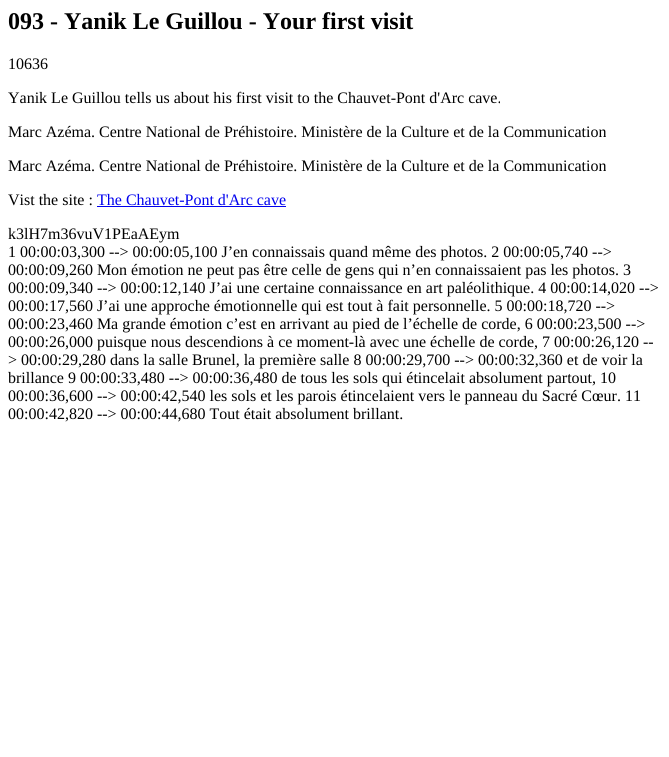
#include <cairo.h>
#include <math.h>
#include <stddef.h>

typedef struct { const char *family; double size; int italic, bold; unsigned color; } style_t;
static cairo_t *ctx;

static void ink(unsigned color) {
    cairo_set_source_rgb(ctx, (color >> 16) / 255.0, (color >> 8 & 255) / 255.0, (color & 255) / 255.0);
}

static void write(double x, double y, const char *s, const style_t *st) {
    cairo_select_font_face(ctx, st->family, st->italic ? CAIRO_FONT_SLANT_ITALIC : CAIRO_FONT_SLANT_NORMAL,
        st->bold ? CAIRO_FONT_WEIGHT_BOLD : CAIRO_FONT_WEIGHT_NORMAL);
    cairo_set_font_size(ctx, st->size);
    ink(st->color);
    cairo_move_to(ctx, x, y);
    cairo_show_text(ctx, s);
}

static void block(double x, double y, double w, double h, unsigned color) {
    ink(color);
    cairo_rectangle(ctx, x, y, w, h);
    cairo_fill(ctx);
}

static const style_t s1 = {"Liberation Serif", 24, 0, 1, 0x000000};
static const style_t s2 = {"Liberation Serif", 16, 0, 0, 0x000000};
static const style_t s3 = {"Liberation Serif", 16, 0, 0, 0x0000ee};

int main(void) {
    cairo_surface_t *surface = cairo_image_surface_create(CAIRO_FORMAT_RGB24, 669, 757);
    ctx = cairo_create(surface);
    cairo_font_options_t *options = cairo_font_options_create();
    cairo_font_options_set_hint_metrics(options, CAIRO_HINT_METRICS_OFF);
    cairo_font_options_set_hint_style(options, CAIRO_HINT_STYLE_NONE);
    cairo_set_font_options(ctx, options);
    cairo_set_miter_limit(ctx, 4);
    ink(0xffffff);
    cairo_paint(ctx);
    write(8, 29, "093 - Yanik Le Guillou - Your first visit", &s1);
    write(8, 69, "10636", &s2);
    write(8, 103, "Yanik Le Guillou tells us about his first visit to the Chauvet-Pont d'Arc cave.", &s2);
    write(8, 137, "Marc Azéma. Centre National de Préhistoire. Ministère de la Culture et de la Communication", &s2);
    write(8, 171, "Marc Azéma. Centre National de Préhistoire. Ministère de la Culture et de la Communication", &s2);
    write(8, 205, "Vist the site :", &s2);
    write(97, 205, "The Chauvet-Pont d'Arc cave", &s3);
    block(97, 206, 189, 1, 0x0000ee);
    write(8, 239, "k3lH7m36vuV1PEaAEym", &s2);
    write(8, 257, "1 00:00:03,300 --> 00:00:05,100 J’en connaissais quand même des photos. 2 00:00:05,740 -->", &s2);
    write(8, 275, "00:00:09,260 Mon émotion ne peut pas être celle de gens qui n’en connaissaient pas les photos. 3", &s2);
    write(8, 293, "00:00:09,340 --> 00:00:12,140 J’ai une certaine connaissance en art paléolithique. 4 00:00:14,020 -->", &s2);
    write(8, 311, "00:00:17,560 J’ai une approche émotionnelle qui est tout à fait personnelle. 5 00:00:18,720 -->", &s2);
    write(8, 329, "00:00:23,460 Ma grande émotion c’est en arrivant au pied de l’échelle de corde, 6 00:00:23,500 -->", &s2);
    write(8, 347, "00:00:26,000 puisque nous descendions à ce moment-là avec une échelle de corde, 7 00:00:26,120 --", &s2);
    write(8, 365, "> 00:00:29,280 dans la salle Brunel, la première salle 8 00:00:29,700 --> 00:00:32,360 et de voir la", &s2);
    write(8, 383, "brillance 9 00:00:33,480 --> 00:00:36,480 de tous les sols qui étincelait absolument partout, 10", &s2);
    write(8, 401, "00:00:36,600 --> 00:00:42,540 les sols et les parois étincelaient vers le panneau du Sacré Cœur. 11", &s2);
    write(8, 419, "00:00:42,820 --> 00:00:44,680 Tout était absolument brillant.", &s2);
    cairo_surface_write_to_png(surface, "screenshot.png");
    cairo_font_options_destroy(options);
    cairo_destroy(ctx);
    cairo_surface_destroy(surface);
    return 0;
}
